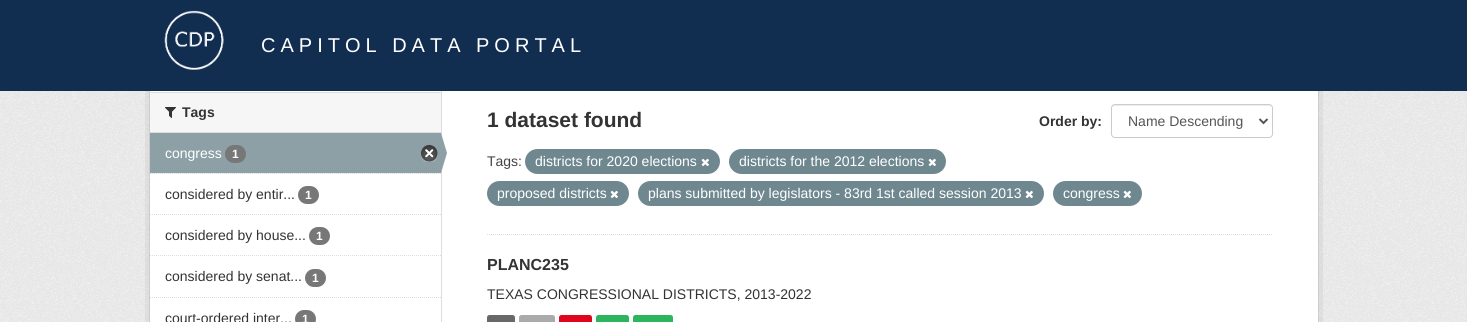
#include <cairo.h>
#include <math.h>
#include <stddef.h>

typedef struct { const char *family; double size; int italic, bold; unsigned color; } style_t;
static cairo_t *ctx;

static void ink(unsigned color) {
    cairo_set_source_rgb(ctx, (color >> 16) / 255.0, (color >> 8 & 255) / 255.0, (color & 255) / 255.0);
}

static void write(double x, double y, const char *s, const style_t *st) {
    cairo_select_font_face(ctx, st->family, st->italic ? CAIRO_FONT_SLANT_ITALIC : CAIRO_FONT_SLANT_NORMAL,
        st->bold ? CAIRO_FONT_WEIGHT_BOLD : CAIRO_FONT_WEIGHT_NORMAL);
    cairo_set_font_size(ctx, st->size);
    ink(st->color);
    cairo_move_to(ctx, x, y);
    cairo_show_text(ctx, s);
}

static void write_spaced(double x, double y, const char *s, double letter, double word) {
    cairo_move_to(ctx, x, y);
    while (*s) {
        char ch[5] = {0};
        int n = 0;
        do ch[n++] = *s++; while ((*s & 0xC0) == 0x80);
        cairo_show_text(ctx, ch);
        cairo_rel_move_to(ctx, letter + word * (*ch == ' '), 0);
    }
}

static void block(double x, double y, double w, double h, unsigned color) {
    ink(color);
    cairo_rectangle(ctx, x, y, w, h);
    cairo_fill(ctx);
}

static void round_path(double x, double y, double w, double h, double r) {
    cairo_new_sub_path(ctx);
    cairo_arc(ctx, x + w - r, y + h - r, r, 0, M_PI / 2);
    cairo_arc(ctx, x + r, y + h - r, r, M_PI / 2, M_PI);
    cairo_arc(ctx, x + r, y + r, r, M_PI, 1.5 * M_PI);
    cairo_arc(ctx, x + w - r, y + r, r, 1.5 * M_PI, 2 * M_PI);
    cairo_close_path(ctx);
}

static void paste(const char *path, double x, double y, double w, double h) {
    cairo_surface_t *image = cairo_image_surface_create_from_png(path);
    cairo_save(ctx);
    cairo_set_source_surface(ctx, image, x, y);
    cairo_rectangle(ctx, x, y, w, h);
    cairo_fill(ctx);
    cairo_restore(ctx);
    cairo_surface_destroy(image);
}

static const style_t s1 = {"Liberation Sans", 14, 0, 1, 0x333333};
static const style_t s2 = {"Liberation Sans", 14, 0, 0, 0xffffff};
static const style_t s3 = {"Liberation Sans", 12, 0, 1, 0xffffff};
static const style_t s4 = {"Liberation Sans", 14, 0, 0, 0x333333};
static const style_t s5 = {"Liberation Sans", 21, 0, 1, 0x333333};
static const style_t s6 = {"Liberation Sans", 14, 0, 0, 0x555555};
static const style_t s7 = {"Liberation Sans", 14, 0, 0, 0x444444};
static const style_t s8 = {"Liberation Sans", 16, 0, 1, 0x333333};

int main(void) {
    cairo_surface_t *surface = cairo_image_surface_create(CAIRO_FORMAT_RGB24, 1467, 322);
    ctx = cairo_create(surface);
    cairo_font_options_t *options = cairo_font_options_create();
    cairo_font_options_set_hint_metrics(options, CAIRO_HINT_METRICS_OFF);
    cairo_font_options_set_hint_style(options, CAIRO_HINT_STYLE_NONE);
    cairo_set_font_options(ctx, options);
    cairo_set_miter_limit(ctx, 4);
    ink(0xeeeeee);
    cairo_paint(ctx);
    paste("pic2.png", 0, 91, 1467, 231);
    cairo_rectangle(ctx, 147, -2, 1174, 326);
    cairo_set_source_rgba(ctx, 0, 0, 0, 0.05);
    cairo_set_line_width(ctx, 4);
    cairo_stroke(ctx);
    block(150, 91, 1168, 231, 0xffffff);
    cairo_rectangle(ctx, 149.5, -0.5, 1169, 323);
    ink(0xcccccc);
    cairo_set_line_width(ctx, 1);
    cairo_stroke(ctx);
    block(0, 0, 1467, 91, 0x112e51);
    paste("pic1.png", 164, 10, 60, 60);
    cairo_select_font_face(ctx, "Liberation Sans", CAIRO_FONT_SLANT_NORMAL, CAIRO_FONT_WEIGHT_NORMAL);
    cairo_set_font_size(ctx, 20);
    ink(0xffffff);
    write_spaced(261, 52, "CAPITOL DATA PORTAL", 5, 0);
    block(150, 93, 291, 39, 0xf6f6f6);
    block(150, 92, 291, 1, 0xdddddd);
    block(150, 132, 291, 1, 0xdddddd);
    paste("pic3.png", 165, 107, 11, 11);
    write(182, 117, "Tags", &s1);
    block(151, 173, 289, 1, 0xf6f6f6);
    cairo_new_path(ctx);
    cairo_move_to(ctx, 150, 173.5);
    cairo_line_to(ctx, 441, 173.5);
    ink(0xdddddd);
    cairo_set_dash(ctx, (double[]){1, 1}, 2, 0);
    cairo_stroke(ctx);
    block(150, 133, 291, 40, 0x8ca0a6);
    write(165, 158, "congress", &s2);
    ink(0x777777);
    round_path(225, 145, 21, 18, 9);
    cairo_fill(ctx);
    write(232, 158, "1", &s3);
    paste("pic4.png", 421, 145, 17, 17);
    block(441, 91, 1, 231, 0xdddddd);
    ink(0x8ca0a6);
    cairo_new_path(ctx);
    cairo_move_to(ctx, 441, 173);
    cairo_line_to(ctx, 441, 133);
    cairo_line_to(ctx, 447, 153);
    cairo_close_path(ctx);
    cairo_fill(ctx);
    cairo_new_path(ctx);
    cairo_move_to(ctx, 150, 214.5);
    cairo_line_to(ctx, 441, 214.5);
    ink(0xdddddd);
    cairo_stroke(ctx);
    write(165, 199, "considered by entir...", &s4);
    ink(0x777777);
    round_path(298, 186, 21, 18, 9);
    cairo_fill(ctx);
    write(305, 199, "1", &s3);
    cairo_new_path(ctx);
    cairo_move_to(ctx, 150, 255.5);
    cairo_line_to(ctx, 441, 255.5);
    ink(0xdddddd);
    cairo_stroke(ctx);
    write(165, 240, "considered by house...", &s4);
    ink(0x777777);
    round_path(309, 227, 21, 18, 9);
    cairo_fill(ctx);
    write(316, 240, "1", &s3);
    cairo_new_path(ctx);
    cairo_move_to(ctx, 150, 297.5);
    cairo_line_to(ctx, 441, 297.5);
    ink(0xdddddd);
    cairo_stroke(ctx);
    write(165, 281, "considered by senat...", &s4);
    ink(0x777777);
    round_path(305, 269, 21, 18, 9);
    cairo_fill(ctx);
    write(312, 282, "1", &s3);
    write(165, 323, "court-ordered inter...", &s4);
    ink(0x777777);
    round_path(295, 310, 21, 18, 9);
    cairo_fill(ctx);
    write(302, 323, "1", &s3);
    cairo_new_path(ctx);
    cairo_move_to(ctx, 487, 234.5);
    cairo_line_to(ctx, 1273, 234.5);
    ink(0xdddddd);
    cairo_stroke(ctx);
    write(487, 127, "1 dataset found", &s5);
    write(1039, 126, "Order by:", &s1);
    ink(0xececec);
    cairo_new_path(ctx);
    cairo_move_to(ctx, 1115, 106);
    cairo_line_to(ctx, 1269, 106);
    cairo_curve_to(ctx, 1271, 106, 1272, 107, 1272, 109);
    cairo_curve_to(ctx, 1272, 107, 1271, 105, 1269, 105);
    cairo_line_to(ctx, 1114, 105);
    cairo_curve_to(ctx, 1112, 105, 1112, 107, 1112, 109);
    cairo_curve_to(ctx, 1112, 107, 1113, 106, 1115, 106);
    cairo_close_path(ctx);
    cairo_fill(ctx);
    round_path(1111.5, 104.5, 161, 33, 3.5);
    ink(0xcccccc);
    cairo_set_dash(ctx, NULL, 0, 0);
    cairo_stroke(ctx);
    cairo_new_path(ctx);
    cairo_move_to(ctx, 1259.5, 119);
    cairo_line_to(ctx, 1263.5, 123);
    cairo_line_to(ctx, 1267.5, 119);
    ink(0x555555);
    cairo_set_line_width(ctx, 2);
    cairo_stroke(ctx);
    write(1128, 126, "Name Descending", &s6);
    write(487, 166, "Tags:", &s7);
    ink(0x6f8890);
    round_path(525, 149, 195, 25, 12.5);
    cairo_fill(ctx);
    write(535, 166, "districts for 2020 elections", &s2);
    paste("pic5.png", 701, 158, 8, 8);
    ink(0x6f8890);
    round_path(729, 149, 217, 25, 12.5);
    cairo_fill(ctx);
    write(739, 166, "districts for the 2012 elections", &s2);
    paste("pic5.png", 928, 158, 8, 8);
    ink(0x6f8890);
    round_path(487, 181, 142, 25, 12.5);
    cairo_fill(ctx);
    write(497, 198, "proposed districts", &s2);
    paste("pic5.png", 610, 190, 8, 8);
    ink(0x6f8890);
    round_path(638, 181, 406, 25, 12.5);
    cairo_fill(ctx);
    write(648, 198, "plans submitted by legislators - 83rd 1st called session 2013", &s2);
    paste("pic5.png", 1025, 190, 8, 8);
    ink(0x6f8890);
    round_path(1053, 181, 89, 25, 12.5);
    cairo_fill(ctx);
    write(1063, 198, "congress", &s2);
    paste("pic5.png", 1123, 190, 8, 8);
    write(487, 270, "PLANC235", &s8);
    write(487, 299, "TEXAS CONGRESSIONAL DISTRICTS, 2013-2022", &s4);
    ink(0x686868);
    round_path(487, 315, 28, 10, 2.5);
    cairo_fill(ctx);
    ink(0xaaaaaa);
    round_path(519, 315, 36, 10, 2.5);
    cairo_fill(ctx);
    ink(0xe0051e);
    round_path(559, 315, 33, 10, 2.5);
    cairo_fill(ctx);
    ink(0x2db55d);
    round_path(596, 315, 33, 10, 2.5);
    cairo_fill(ctx);
    round_path(633, 315, 40, 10, 2.5);
    cairo_fill(ctx);
    cairo_surface_write_to_png(surface, "screenshot.png");
    cairo_font_options_destroy(options);
    cairo_destroy(ctx);
    cairo_surface_destroy(surface);
    return 0;
}
